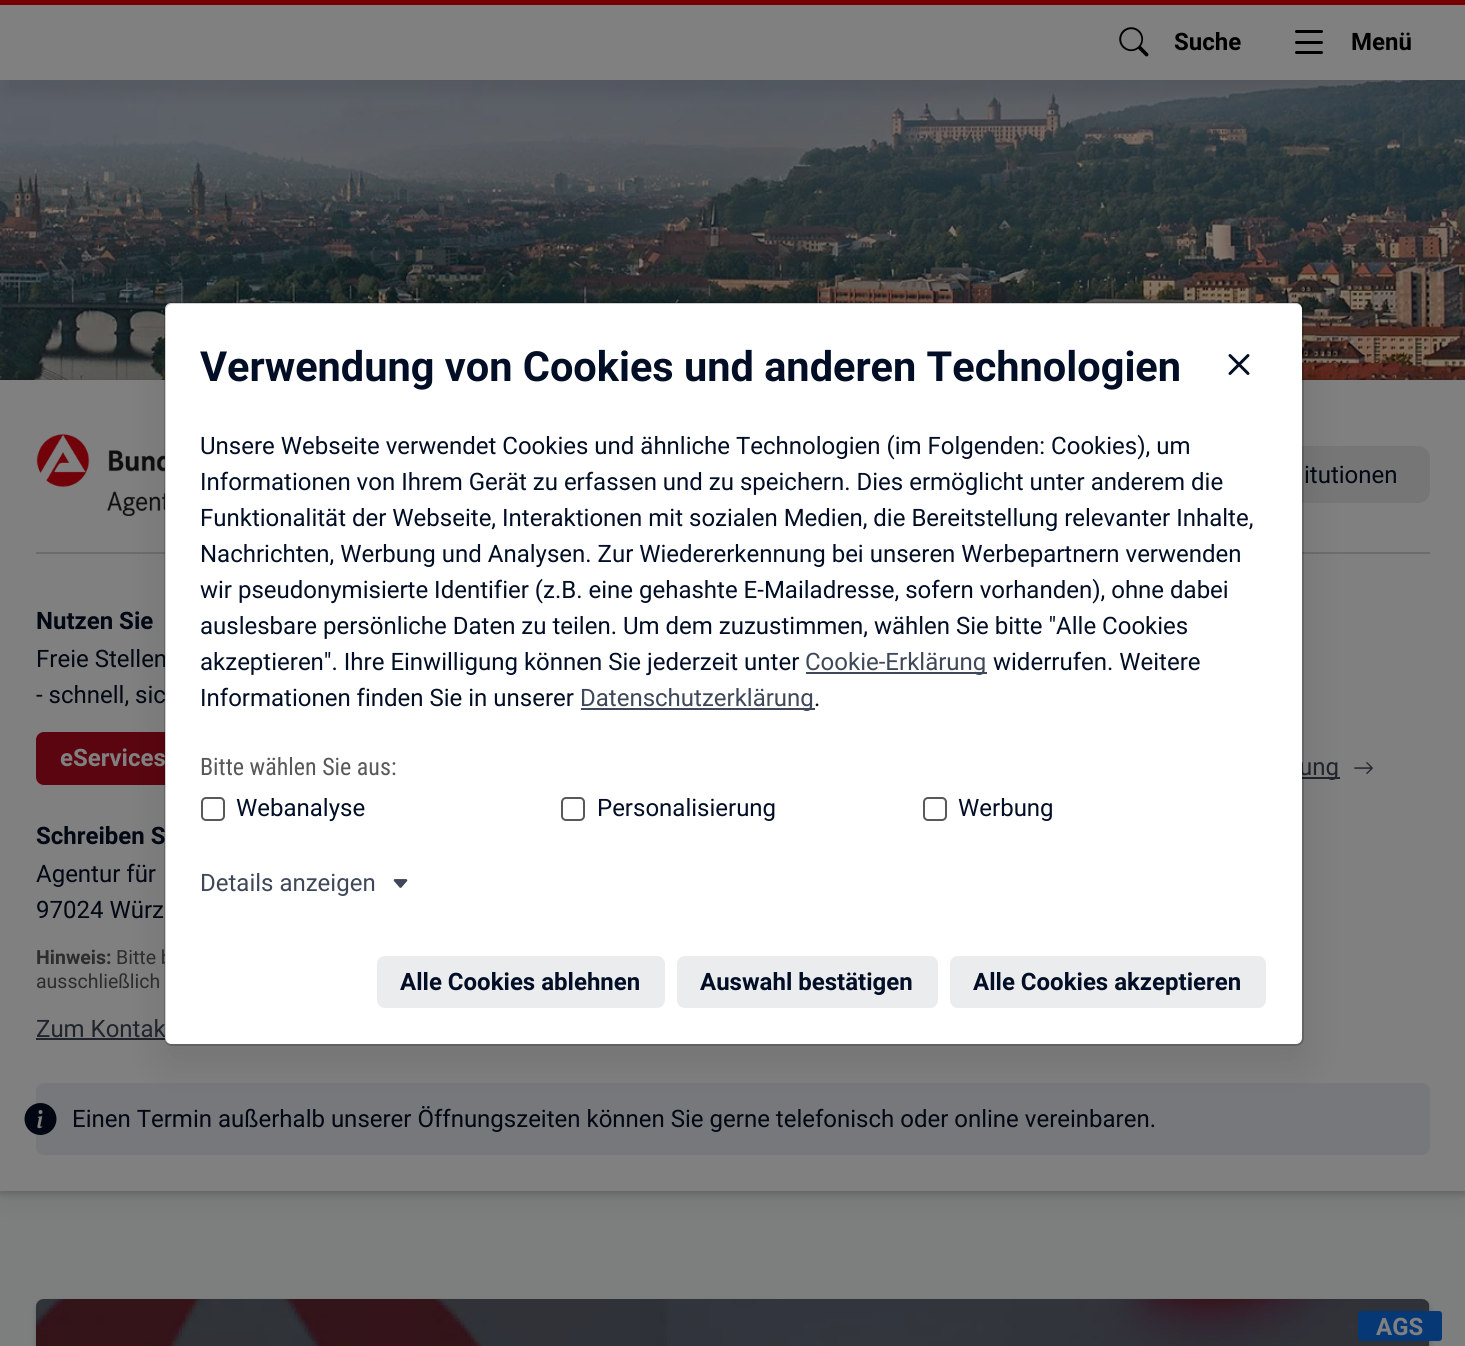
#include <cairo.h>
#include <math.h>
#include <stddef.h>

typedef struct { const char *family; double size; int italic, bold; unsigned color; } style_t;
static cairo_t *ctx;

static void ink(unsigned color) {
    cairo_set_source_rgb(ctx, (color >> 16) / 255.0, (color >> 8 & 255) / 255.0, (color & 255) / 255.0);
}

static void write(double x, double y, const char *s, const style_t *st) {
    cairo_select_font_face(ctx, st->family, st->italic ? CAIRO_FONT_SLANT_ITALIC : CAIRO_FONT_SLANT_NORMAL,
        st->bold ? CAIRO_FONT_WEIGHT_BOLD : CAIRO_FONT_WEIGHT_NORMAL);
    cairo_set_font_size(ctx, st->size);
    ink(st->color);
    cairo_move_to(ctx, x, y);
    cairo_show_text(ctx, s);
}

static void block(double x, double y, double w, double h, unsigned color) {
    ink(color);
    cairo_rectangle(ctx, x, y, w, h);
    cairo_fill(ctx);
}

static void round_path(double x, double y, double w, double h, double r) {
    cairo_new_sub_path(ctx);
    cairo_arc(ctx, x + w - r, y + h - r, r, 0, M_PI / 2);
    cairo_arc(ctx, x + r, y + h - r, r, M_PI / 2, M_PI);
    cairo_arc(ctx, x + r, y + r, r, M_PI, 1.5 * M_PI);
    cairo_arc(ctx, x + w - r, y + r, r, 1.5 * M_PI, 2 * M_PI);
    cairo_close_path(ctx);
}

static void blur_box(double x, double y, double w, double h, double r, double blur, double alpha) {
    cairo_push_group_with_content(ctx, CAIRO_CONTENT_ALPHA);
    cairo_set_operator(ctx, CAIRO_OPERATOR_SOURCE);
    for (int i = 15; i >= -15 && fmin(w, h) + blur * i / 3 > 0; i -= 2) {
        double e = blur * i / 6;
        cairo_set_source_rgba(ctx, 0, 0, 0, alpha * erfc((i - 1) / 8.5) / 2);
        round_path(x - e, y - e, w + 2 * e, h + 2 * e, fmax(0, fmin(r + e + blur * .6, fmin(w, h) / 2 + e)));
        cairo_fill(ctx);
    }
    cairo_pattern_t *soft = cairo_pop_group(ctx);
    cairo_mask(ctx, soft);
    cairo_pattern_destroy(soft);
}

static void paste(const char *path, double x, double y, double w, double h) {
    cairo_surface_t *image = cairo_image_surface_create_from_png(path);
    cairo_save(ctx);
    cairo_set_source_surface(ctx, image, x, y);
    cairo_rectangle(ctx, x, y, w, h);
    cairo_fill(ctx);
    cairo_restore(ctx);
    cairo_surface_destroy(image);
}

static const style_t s1 = {"Roboto", 24, 0, 1, 0x000000};
static const style_t s2 = {"Roboto", 24, 0, 0, 0x010713};
static const style_t s3 = {"Roboto", 24, 0, 0, 0x20242d};
static const style_t s4 = {"Roboto", 19.5, 0, 0, 0x2d2d2d};
static const style_t s5 = {"Roboto", 24, 0, 1, 0x808080};
static const style_t s6 = {"Roboto", 24, 0, 1, 0x010713};
static const style_t s7 = {"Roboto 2", 41.5, 0, 1, 0x020e25};
static const style_t s8 = {"Roboto", 24, 0, 0, 0x020e25};
static const style_t s9 = {"Roboto", 24, 0, 0, 0x3f4859};
static const style_t s10 = {"Roboto Condensed", 24, 0, 0, 0x595959};
static const style_t s11 = {"Roboto", 24, 0, 1, 0x020e25};
static const style_t s12 = {"Roboto", 19.5, 0, 1, 0x2d2d2d};

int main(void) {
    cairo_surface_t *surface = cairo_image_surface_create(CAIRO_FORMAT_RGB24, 1465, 1346);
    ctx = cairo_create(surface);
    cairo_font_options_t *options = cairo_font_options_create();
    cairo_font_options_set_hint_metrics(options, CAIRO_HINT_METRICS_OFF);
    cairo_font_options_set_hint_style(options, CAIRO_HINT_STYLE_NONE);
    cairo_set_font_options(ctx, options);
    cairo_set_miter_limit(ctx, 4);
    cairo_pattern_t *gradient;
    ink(0x7d7e7e);
    cairo_paint(ctx);
    paste("pic4.png", 0, 80, 1465, 300);
    ink(0x000000);
    blur_box(3, 21, 1460, 74, 0, 7.5, 0.08);
    block(0, 5, 1465, 75, 0x808080);
    block(0, 0, 1465, 5, 0x740000);
    paste("pic1.png", 1119, 27, 30, 30);
    write(1174, 50, "Suche", &s1);
    round_path(1295, 41, 28, 3, 1.5);
    cairo_fill(ctx);
    round_path(1295, 30, 28, 3, 1.5);
    cairo_fill(ctx);
    round_path(1295, 51, 28, 3, 1.5);
    cairo_fill(ctx);
    write(1351, 50, "Menü", &s1);
    ink(0x000000);
    blur_box(0, 386, 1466, 811, 0, 18, 0.08);
    blur_box(0, 383, 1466, 811, 0, 3, 0.16);
    block(0, 380, 1465, 811, 0x808080);
    paste("pic5.png", 36, 434, 129, 82);
    ink(0x767677);
    round_path(827, 446, 603, 57, 12);
    cairo_fill(ctx);
    block(36, 552, 1394, 2, 0x6c6c6e);
    ink(0x5a0510);
    round_path(36, 732, 234, 53, 8);
    cairo_fill(ctx);
    block(1302, 777, 38, 2, 0x20242d);
    paste("pic6.png", 1354, 762, 19, 12);
    block(36, 1038, 130, 2, 0x20242d);
    ink(0x76787b);
    round_path(36, 1083, 1394, 72, 8);
    cairo_fill(ctx);
    ink(0x000000);
    blur_box(158, 314, 1152, 756, 14, 18, 0.08);
    write(36, 667, "Freie Stellen", &s2);
    write(36, 703, "- schnell, sic", &s2);
    write(1299, 775, "ung", &s3);
    write(116, 964, "Bitte b", &s4);
    write(36, 1037, "Zum Kontak", &s3);
    ink(0xffffff);
    round_path(165, 303, 1137, 741, 6);
    cairo_fill(ctx);
    write(60, 766, "eServices", &s5);
    write(36, 844, "Schreiben S", &s6);
    round_path(165, 303, 1138, 742, 7);
    cairo_set_source_rgba(ctx, 0, 0, 0, 0.18);
    cairo_stroke(ctx);
    write(200, 381, "Verwendung von Cookies und anderen Technologien", &s7);
    paste("pic2.png", 1228, 354, 22, 21);
    write(200, 454, "Unsere Webseite verwendet Cookies und ähnliche Technologien (im Folgenden: Cookies), um", &s8);
    write(200, 490, "Informationen von Ihrem Gerät zu erfassen und zu speichern. Dies ermöglicht unter anderem die", &s8);
    write(200, 526, "Funktionalität der Webseite, Interaktionen mit sozialen Medien, die Bereitstellung relevanter Inhalte,", &s8);
    write(200, 562, "Nachrichten, Werbung und Analysen. Zur Wiedererkennung bei unseren Werbepartnern verwenden", &s8);
    write(200, 598, "wir pseudonymisierte Identifier (z.B. eine gehashte E-Mailadresse, sofern vorhanden), ohne dabei", &s8);
    write(200, 634, "auslesbare persönliche Daten zu teilen. Um dem zuzustimmen, wählen Sie bitte \"Alle Cookies", &s8);
    write(200, 670, "akzeptieren\". Ihre Einwilligung können Sie jederzeit unter", &s8);
    block(806, 672, 181, 2, 0x3f4859);
    write(805, 670, "Cookie-Erklärung", &s9);
    write(993, 670, "widerrufen. Weitere", &s8);
    write(200, 706, "Informationen finden Sie in unserer", &s8);
    block(581, 708, 234, 2, 0x3f4859);
    write(580, 706, "Datenschutzerklärung", &s9);
    write(814, 706, ".", &s8);
    write(200, 775, "Bitte wählen Sie aus:", &s10);
    round_path(202, 798, 22, 22, 4);
    cairo_stroke(ctx);
    write(236, 816, "Webanalyse", &s8);
    round_path(562, 798, 22, 22, 4);
    ink(0x595959);
    cairo_stroke(ctx);
    write(597, 816, "Personalisierung", &s8);
    round_path(924, 798, 22, 22, 4);
    ink(0x595959);
    cairo_stroke(ctx);
    write(958, 816, "Werbung", &s8);
    write(200, 891, "Details anzeigen", &s9);
    paste("pic3.png", 393, 879, 15, 9);
    ink(0xebecee);
    round_path(377, 956, 288, 52, 8);
    cairo_fill(ctx);
    write(400, 990, "Alle Cookies ablehnen", &s11);
    ink(0xebecee);
    round_path(677, 956, 261, 52, 8);
    cairo_fill(ctx);
    write(700, 990, "Auswahl bestätigen", &s11);
    ink(0xebecee);
    round_path(950, 956, 316, 52, 8);
    cairo_fill(ctx);
    write(973, 990, "Alle Cookies akzeptieren", &s11);
    write(1304, 483, "itutionen", &s2);
    write(36, 629, "Nutzen Sie", &s6);
    write(36, 882, "Agentur für", &s2);
    write(36, 918, "97024 Würz", &s2);
    write(36, 964, "Hinweis:", &s12);
    write(36, 988, "ausschließlich", &s4);
    gradient = cairo_pattern_create_radial(41, 1119, 0, 41, 1119, 25);
    cairo_pattern_add_color_stop_rgba(gradient, 0, 0.502, 0.502, 0.502, 1);
    cairo_pattern_add_color_stop_rgba(gradient, 0.59, 0.502, 0.502, 0.502, 1);
    cairo_pattern_add_color_stop_rgba(gradient, 0.65, 0.502, 0.502, 0.502, 0);
    cairo_set_source(ctx, gradient);
    cairo_pattern_destroy(gradient);
    cairo_rectangle(ctx, 36, 1103, 21, 32);
    cairo_fill(ctx);
    paste("pic7.png", 24, 1103, 33, 32);
    write(72, 1127, "Einen Termin außerhalb unserer Öffnungszeiten können Sie gerne telefonisch oder online vereinbaren.", &s2);
    ink(0x000000);
    blur_box(36, 1302, 1394, 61, 8, 3, 0.16);
    ink(0x808080);
    round_path(36, 1299, 1394, 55, 8);
    cairo_fill(ctx);
    paste("pic8.png", 36, 1299, 1394, 47);
    ink(0x063876);
    round_path(1358, 1311, 84, 30, 3);
    cairo_fill(ctx);
    write(1376, 1335, "AGS", &s5);
    cairo_surface_write_to_png(surface, "screenshot.png");
    cairo_font_options_destroy(options);
    cairo_destroy(ctx);
    cairo_surface_destroy(surface);
    return 0;
}
